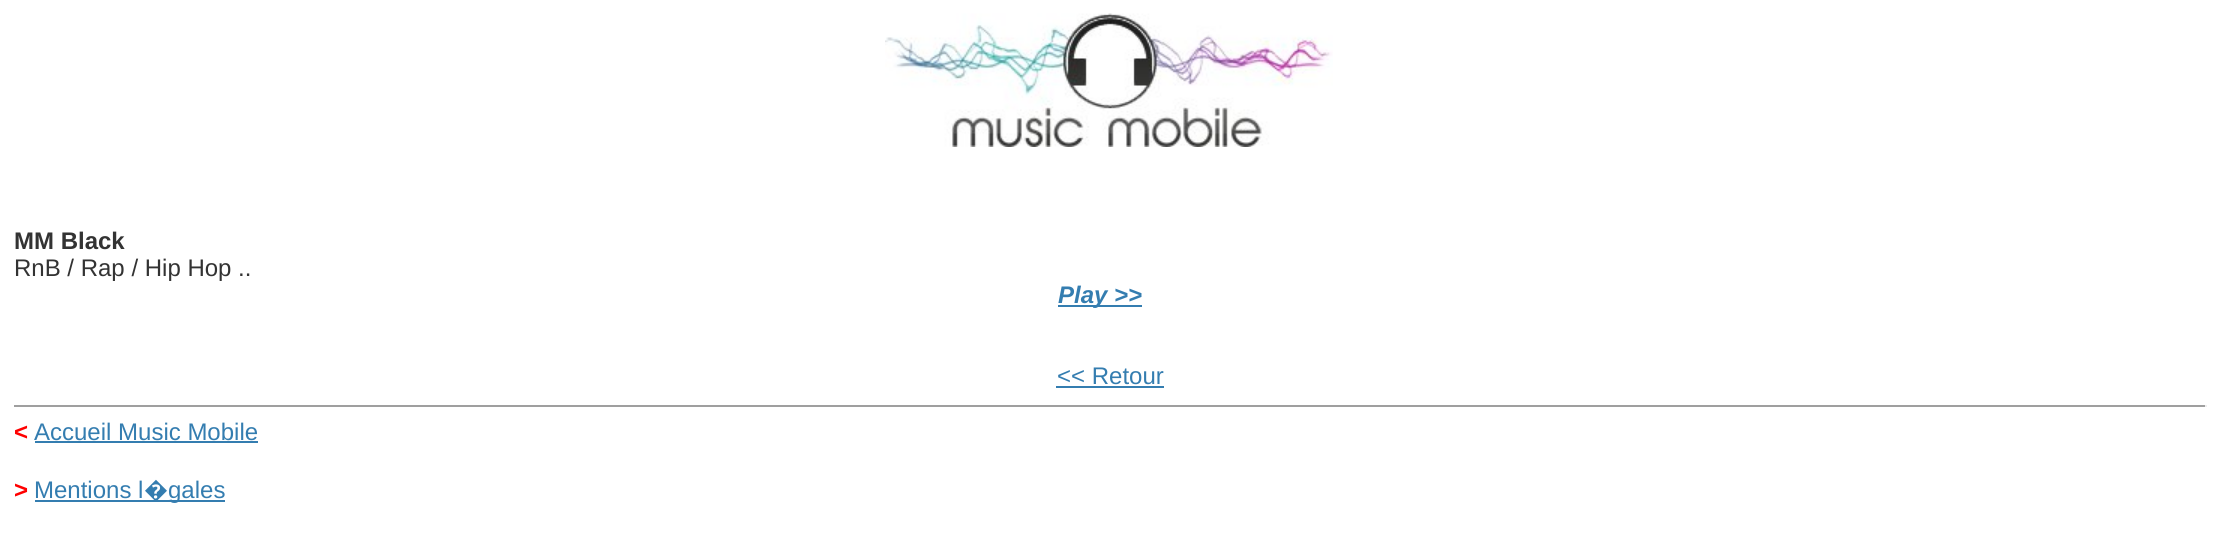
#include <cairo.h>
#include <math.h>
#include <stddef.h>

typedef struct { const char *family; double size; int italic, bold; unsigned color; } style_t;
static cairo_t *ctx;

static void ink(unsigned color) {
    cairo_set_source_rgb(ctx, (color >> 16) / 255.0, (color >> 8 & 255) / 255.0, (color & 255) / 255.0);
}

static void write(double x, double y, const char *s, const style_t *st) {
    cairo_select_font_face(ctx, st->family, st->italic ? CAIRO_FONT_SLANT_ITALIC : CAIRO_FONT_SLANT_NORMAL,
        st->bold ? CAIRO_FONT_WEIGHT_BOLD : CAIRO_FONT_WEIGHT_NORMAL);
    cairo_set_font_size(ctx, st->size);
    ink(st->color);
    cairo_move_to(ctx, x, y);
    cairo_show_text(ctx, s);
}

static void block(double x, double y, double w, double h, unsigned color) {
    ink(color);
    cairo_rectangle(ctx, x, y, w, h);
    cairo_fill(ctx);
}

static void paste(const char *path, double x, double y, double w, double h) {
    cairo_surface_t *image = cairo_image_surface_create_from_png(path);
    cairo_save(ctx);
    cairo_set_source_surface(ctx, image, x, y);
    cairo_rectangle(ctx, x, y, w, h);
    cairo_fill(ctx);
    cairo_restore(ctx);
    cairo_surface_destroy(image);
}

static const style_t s1 = {"Liberation Sans", 24, 0, 1, 0x333333};
static const style_t s2 = {"Liberation Sans", 24, 0, 0, 0x333333};
static const style_t s3 = {"Liberation Sans", 24, 1, 1, 0x347db0};
static const style_t s4 = {"Liberation Sans", 24, 0, 0, 0x347db0};
static const style_t s5 = {"Liberation Sans", 24, 0, 1, 0xff0000};
static const style_t s6 = {"Noto Sans", 24, 0, 0, 0x347db0};

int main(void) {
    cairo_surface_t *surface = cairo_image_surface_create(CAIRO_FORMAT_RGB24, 2219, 543);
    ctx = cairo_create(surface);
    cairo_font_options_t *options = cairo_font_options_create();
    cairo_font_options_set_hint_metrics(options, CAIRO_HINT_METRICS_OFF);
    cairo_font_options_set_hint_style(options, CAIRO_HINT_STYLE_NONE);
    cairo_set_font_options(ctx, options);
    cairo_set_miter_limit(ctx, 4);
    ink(0xffffff);
    cairo_paint(ctx);
    paste("pic1.png", 885, 13, 448, 134);
    write(14, 249, "MM Black", &s1);
    write(14, 276, "RnB / Rap / Hip Hop ..", &s2);
    block(1058, 305, 84, 2, 0x347db0);
    write(1058, 303, "Play >>", &s3);
    write(1057, 384, "<< Retour", &s4);
    block(1056, 386, 108, 2, 0x347db0);
    block(14, 405, 2193, 2, 0x9f9f9f);
    block(2205, 405, 2, 2, 0xeeeeee);
    write(14, 440, "<", &s5);
    write(34, 440, "Accueil Music Mobile", &s4);
    block(35, 441, 223, 2, 0x347db0);
    write(14, 498, ">", &s5);
    write(34, 498, "Mentions l", &s4);
    block(35, 500, 190, 2, 0x347db0);
    write(144, 498, "�", &s6);
    write(168, 498, "gales", &s4);
    cairo_surface_write_to_png(surface, "screenshot.png");
    cairo_font_options_destroy(options);
    cairo_destroy(ctx);
    cairo_surface_destroy(surface);
    return 0;
}
